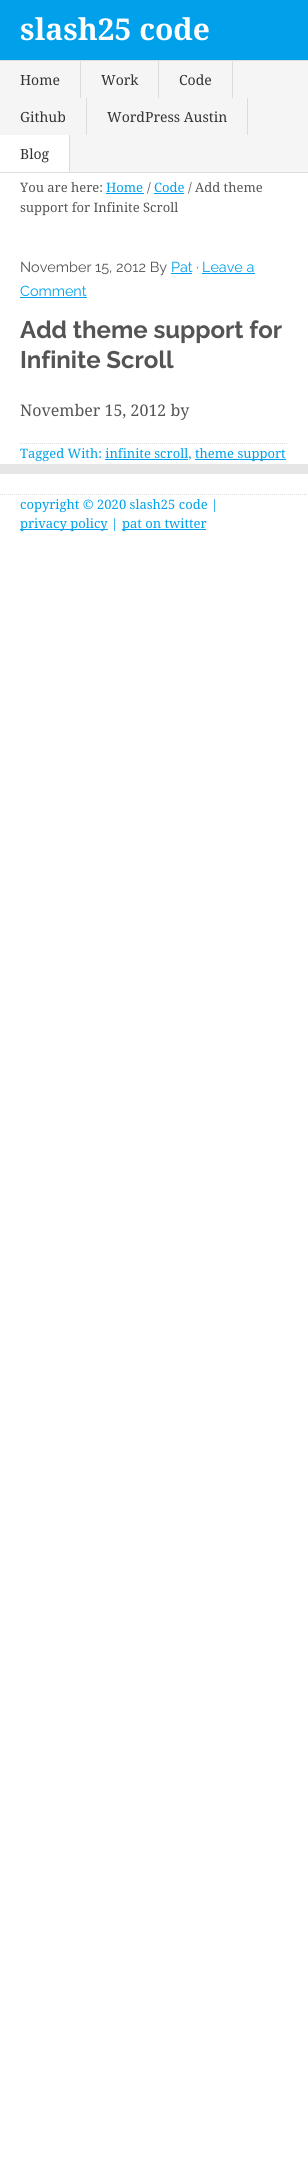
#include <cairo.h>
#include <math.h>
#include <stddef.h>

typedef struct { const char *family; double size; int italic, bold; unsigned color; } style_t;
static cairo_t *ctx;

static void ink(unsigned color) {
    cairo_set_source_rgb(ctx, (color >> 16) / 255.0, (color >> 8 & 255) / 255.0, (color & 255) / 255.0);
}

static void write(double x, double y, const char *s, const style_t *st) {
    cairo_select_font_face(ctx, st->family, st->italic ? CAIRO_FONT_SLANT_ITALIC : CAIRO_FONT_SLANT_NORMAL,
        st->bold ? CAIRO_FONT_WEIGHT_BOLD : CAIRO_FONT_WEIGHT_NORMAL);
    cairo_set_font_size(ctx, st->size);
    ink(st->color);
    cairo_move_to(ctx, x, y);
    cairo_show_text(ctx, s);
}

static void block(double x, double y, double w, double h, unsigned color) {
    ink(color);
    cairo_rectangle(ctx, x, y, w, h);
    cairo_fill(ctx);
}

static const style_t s1 = {"Droid Serif", 30, 0, 1, 0xffffff};
static const style_t s2 = {"Droid Serif", 14, 0, 0, 0x333333};
static const style_t s3 = {"Droid Serif", 13, 0, 0, 0x545454};
static const style_t s4 = {"Droid Serif", 13, 0, 0, 0x00a0ea};
static const style_t s5 = {"Raleway", 14.4, 0, 0, 0x545454};
static const style_t s6 = {"Raleway", 14.4, 0, 0, 0x00a0ea};
static const style_t s7 = {"Raleway", 24, 0, 1, 0x545454};
static const style_t s8 = {"Droid Serif", 16, 0, 0, 0x545454};

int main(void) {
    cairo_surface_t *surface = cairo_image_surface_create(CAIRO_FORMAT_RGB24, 308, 2173);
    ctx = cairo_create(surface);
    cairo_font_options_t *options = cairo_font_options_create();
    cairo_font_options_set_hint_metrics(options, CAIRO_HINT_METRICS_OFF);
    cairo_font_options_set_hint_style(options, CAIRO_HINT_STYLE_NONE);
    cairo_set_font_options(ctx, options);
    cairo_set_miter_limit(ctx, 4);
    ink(0xffffff);
    cairo_paint(ctx);
    block(0, 0, 308, 60, 0x00a0ea);
    write(20, 40, "slash25 code", &s1);
    block(0, 61, 308, 111, 0xf5f5f5);
    block(0, 60, 308, 1, 0xdddddd);
    block(0, 172, 308, 1, 0xdddddd);
    block(80, 61, 1, 37, 0xdddddd);
    write(20, 85, "Home", &s2);
    block(158, 61, 1, 37, 0xdddddd);
    write(101, 85, "Work", &s2);
    block(232, 61, 1, 37, 0xdddddd);
    write(179, 85, "Code", &s2);
    block(86, 98, 1, 37, 0xdddddd);
    write(20, 122, "Github", &s2);
    block(247, 98, 1, 37, 0xdddddd);
    write(107, 122, "WordPress Austin", &s2);
    block(0, 135, 69, 37, 0xffffff);
    block(69, 135, 1, 37, 0xdddddd);
    write(20, 159, "Blog", &s2);
    write(20, 192, "You are here:", &s3);
    write(106, 192, "Home", &s4);
    block(106, 193, 38, 1, 0x00a0ea);
    write(147, 192, "/", &s3);
    write(154, 192, "Code", &s4);
    block(154, 193, 30, 1, 0x00a0ea);
    write(188, 192, "/ Add theme", &s3);
    write(20, 212, "support for Infinite Scroll", &s3);
    block(0, 464, 308, 10, 0xe6e6e6);
    write(20, 272, "November 15, 2012 By", &s5);
    write(171, 272, "Pat", &s6);
    block(171, 273, 21, 1, 0x00a0ea);
    write(196, 272, "·", &s5);
    write(202, 272, "Leave a", &s6);
    block(202, 273, 53, 1, 0x00a0ea);
    write(20, 296, "Comment", &s6);
    block(20, 297, 67, 1, 0x00a0ea);
    write(20, 338, "Add theme support for", &s7);
    write(20, 368, "Infinite Scroll", &s7);
    write(20, 416, "November 15, 2012 by", &s8);
    cairo_new_path(ctx);
    cairo_move_to(ctx, 20, 443.5);
    cairo_line_to(ctx, 288, 443.5);
    ink(0xdddddd);
    cairo_set_line_width(ctx, 1);
    cairo_set_dash(ctx, (double[]){1, 1}, 2, 0);
    cairo_stroke(ctx);
    write(20, 458, "Tagged With: infinite scroll,", &s4);
    block(105, 459, 83, 1, 0x00a0ea);
    block(195, 459, 91, 1, 0x00a0ea);
    write(195, 458, "theme support", &s4);
    cairo_new_path(ctx);
    cairo_move_to(ctx, 0, 494.5);
    cairo_line_to(ctx, 308, 494.5);
    ink(0xdddddd);
    cairo_stroke(ctx);
    write(20, 509, "copyright © 2020 slash25 code |", &s4);
    block(20, 529, 88, 1, 0x00a0ea);
    write(20, 528, "privacy policy |", &s4);
    block(122, 529, 84, 1, 0x00a0ea);
    write(122, 528, "pat on twitter", &s4);
    cairo_surface_write_to_png(surface, "screenshot.png");
    cairo_font_options_destroy(options);
    cairo_destroy(ctx);
    cairo_surface_destroy(surface);
    return 0;
}
